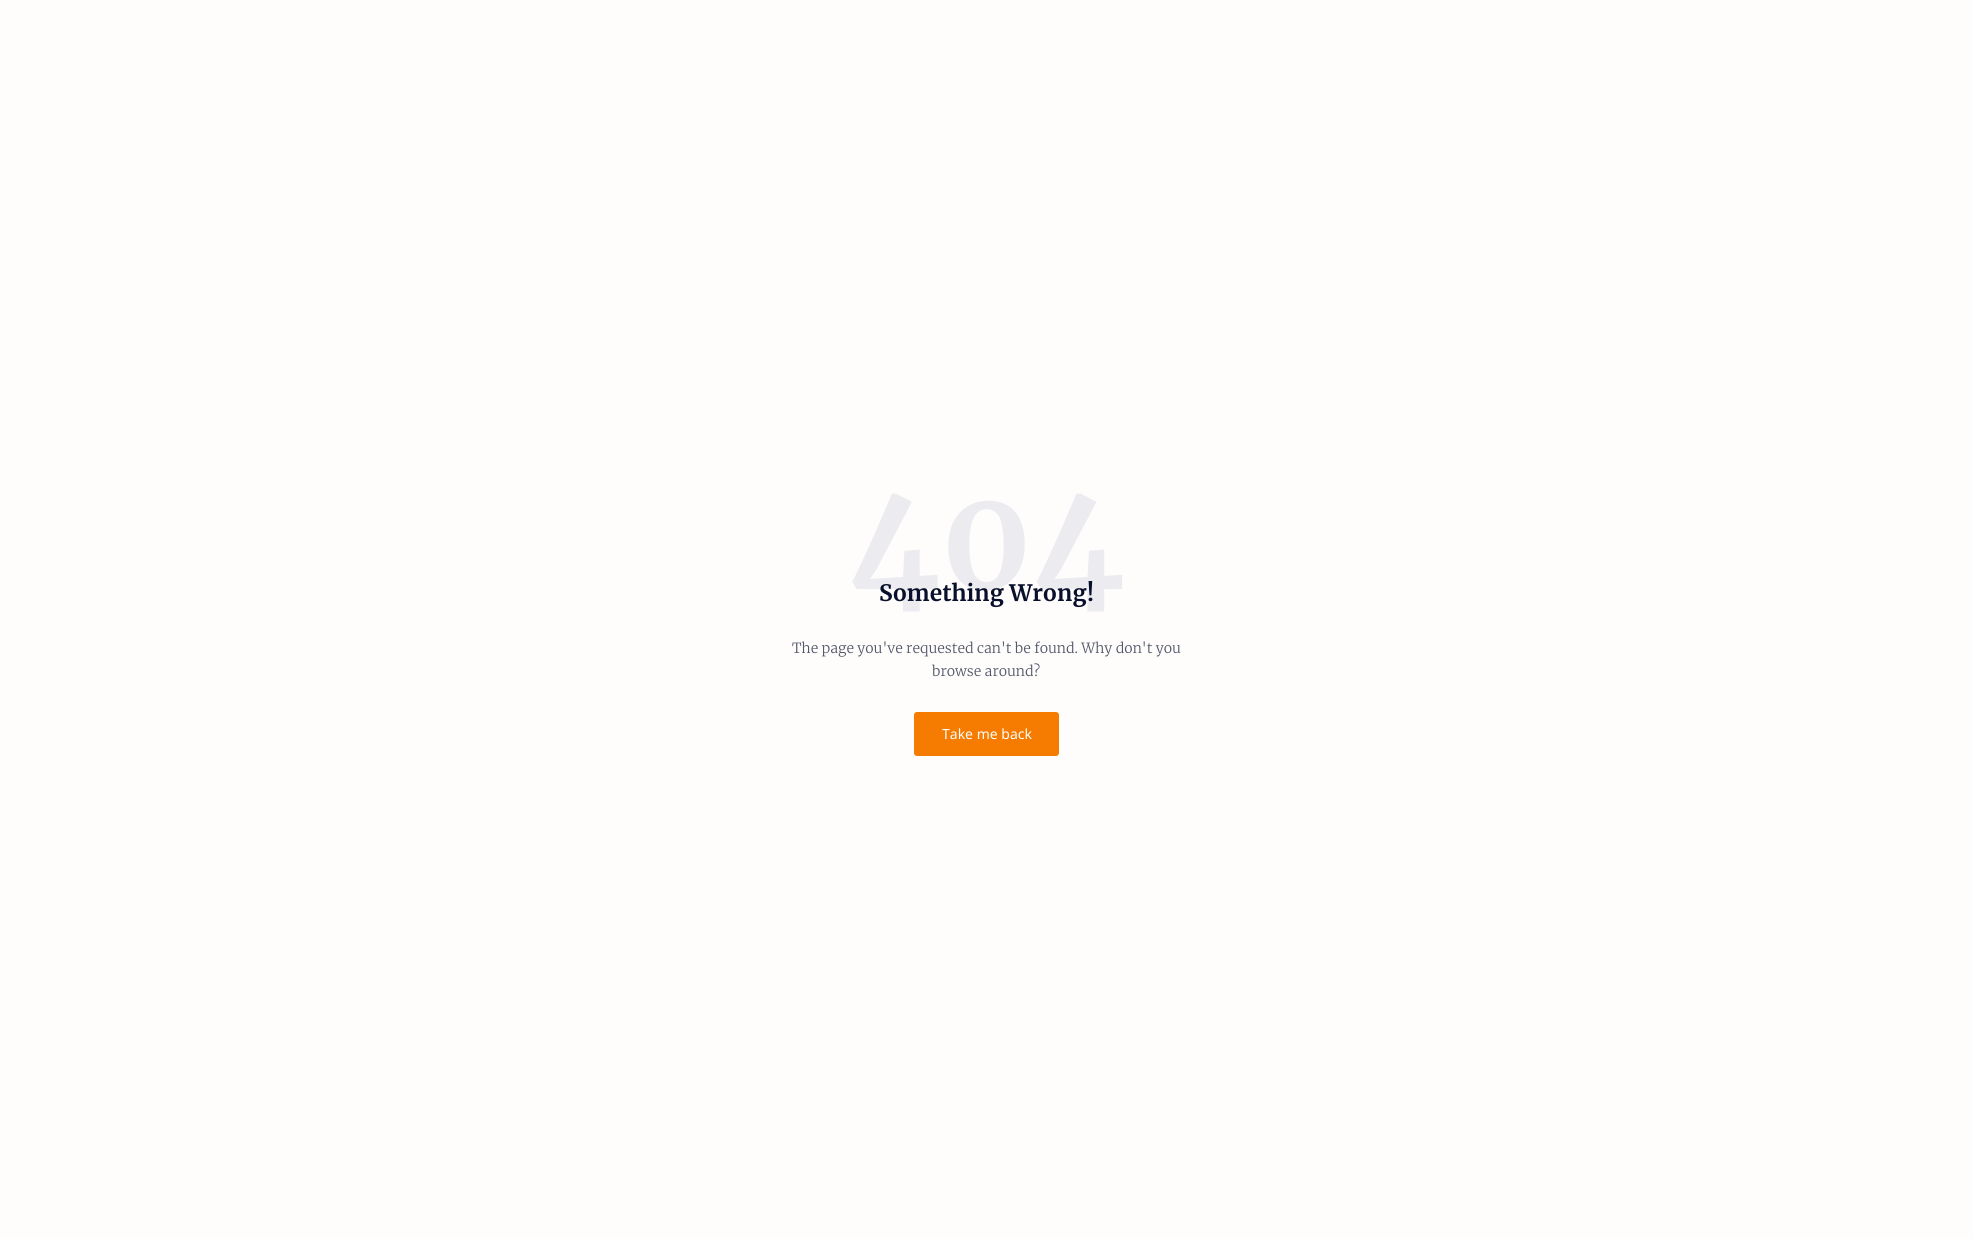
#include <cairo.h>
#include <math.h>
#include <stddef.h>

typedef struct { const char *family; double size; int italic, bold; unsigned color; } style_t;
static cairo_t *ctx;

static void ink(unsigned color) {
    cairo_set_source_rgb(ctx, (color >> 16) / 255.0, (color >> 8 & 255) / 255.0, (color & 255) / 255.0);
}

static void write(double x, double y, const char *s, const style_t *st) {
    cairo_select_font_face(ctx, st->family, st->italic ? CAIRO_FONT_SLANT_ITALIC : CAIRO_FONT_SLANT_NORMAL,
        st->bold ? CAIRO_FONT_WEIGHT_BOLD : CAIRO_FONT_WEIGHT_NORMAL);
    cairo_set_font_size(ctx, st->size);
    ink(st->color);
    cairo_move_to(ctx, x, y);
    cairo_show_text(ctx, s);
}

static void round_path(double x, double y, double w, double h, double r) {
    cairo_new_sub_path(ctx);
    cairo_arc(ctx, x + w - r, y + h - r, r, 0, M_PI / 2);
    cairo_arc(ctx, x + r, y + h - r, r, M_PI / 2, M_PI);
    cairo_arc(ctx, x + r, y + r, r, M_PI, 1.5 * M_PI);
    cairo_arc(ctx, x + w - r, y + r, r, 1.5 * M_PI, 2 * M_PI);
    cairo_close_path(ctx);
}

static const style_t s1 = {"Merriweather", 140, 0, 1, 0xebebf0};
static const style_t s2 = {"Merriweather", 22.6, 0, 1, 0x08102b};
static const style_t s3 = {"Merriweather Light", 14, 0, 0, 0x52576a};
static const style_t s4 = {"Noto Sans", 14, 0, 0, 0xfffdfc};

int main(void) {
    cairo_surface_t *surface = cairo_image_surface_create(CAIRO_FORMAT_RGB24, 1973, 1239);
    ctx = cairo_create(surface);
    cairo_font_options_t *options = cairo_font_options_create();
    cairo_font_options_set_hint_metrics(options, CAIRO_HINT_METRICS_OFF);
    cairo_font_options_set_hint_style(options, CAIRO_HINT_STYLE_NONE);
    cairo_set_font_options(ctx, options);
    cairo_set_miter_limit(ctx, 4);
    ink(0xfffdfc);
    cairo_paint(ctx);
    write(848, 589, "404", &s1);
    write(879, 601, "Something Wrong!", &s2);
    write(792, 653, "The page you've requested can't be found. Why don't you", &s3);
    write(932, 676, "browse around?", &s3);
    ink(0xf57c00);
    round_path(914, 712, 145, 44, 3);
    cairo_fill(ctx);
    write(942, 739, "Take me back", &s4);
    cairo_surface_write_to_png(surface, "screenshot.png");
    cairo_font_options_destroy(options);
    cairo_destroy(ctx);
    cairo_surface_destroy(surface);
    return 0;
}
